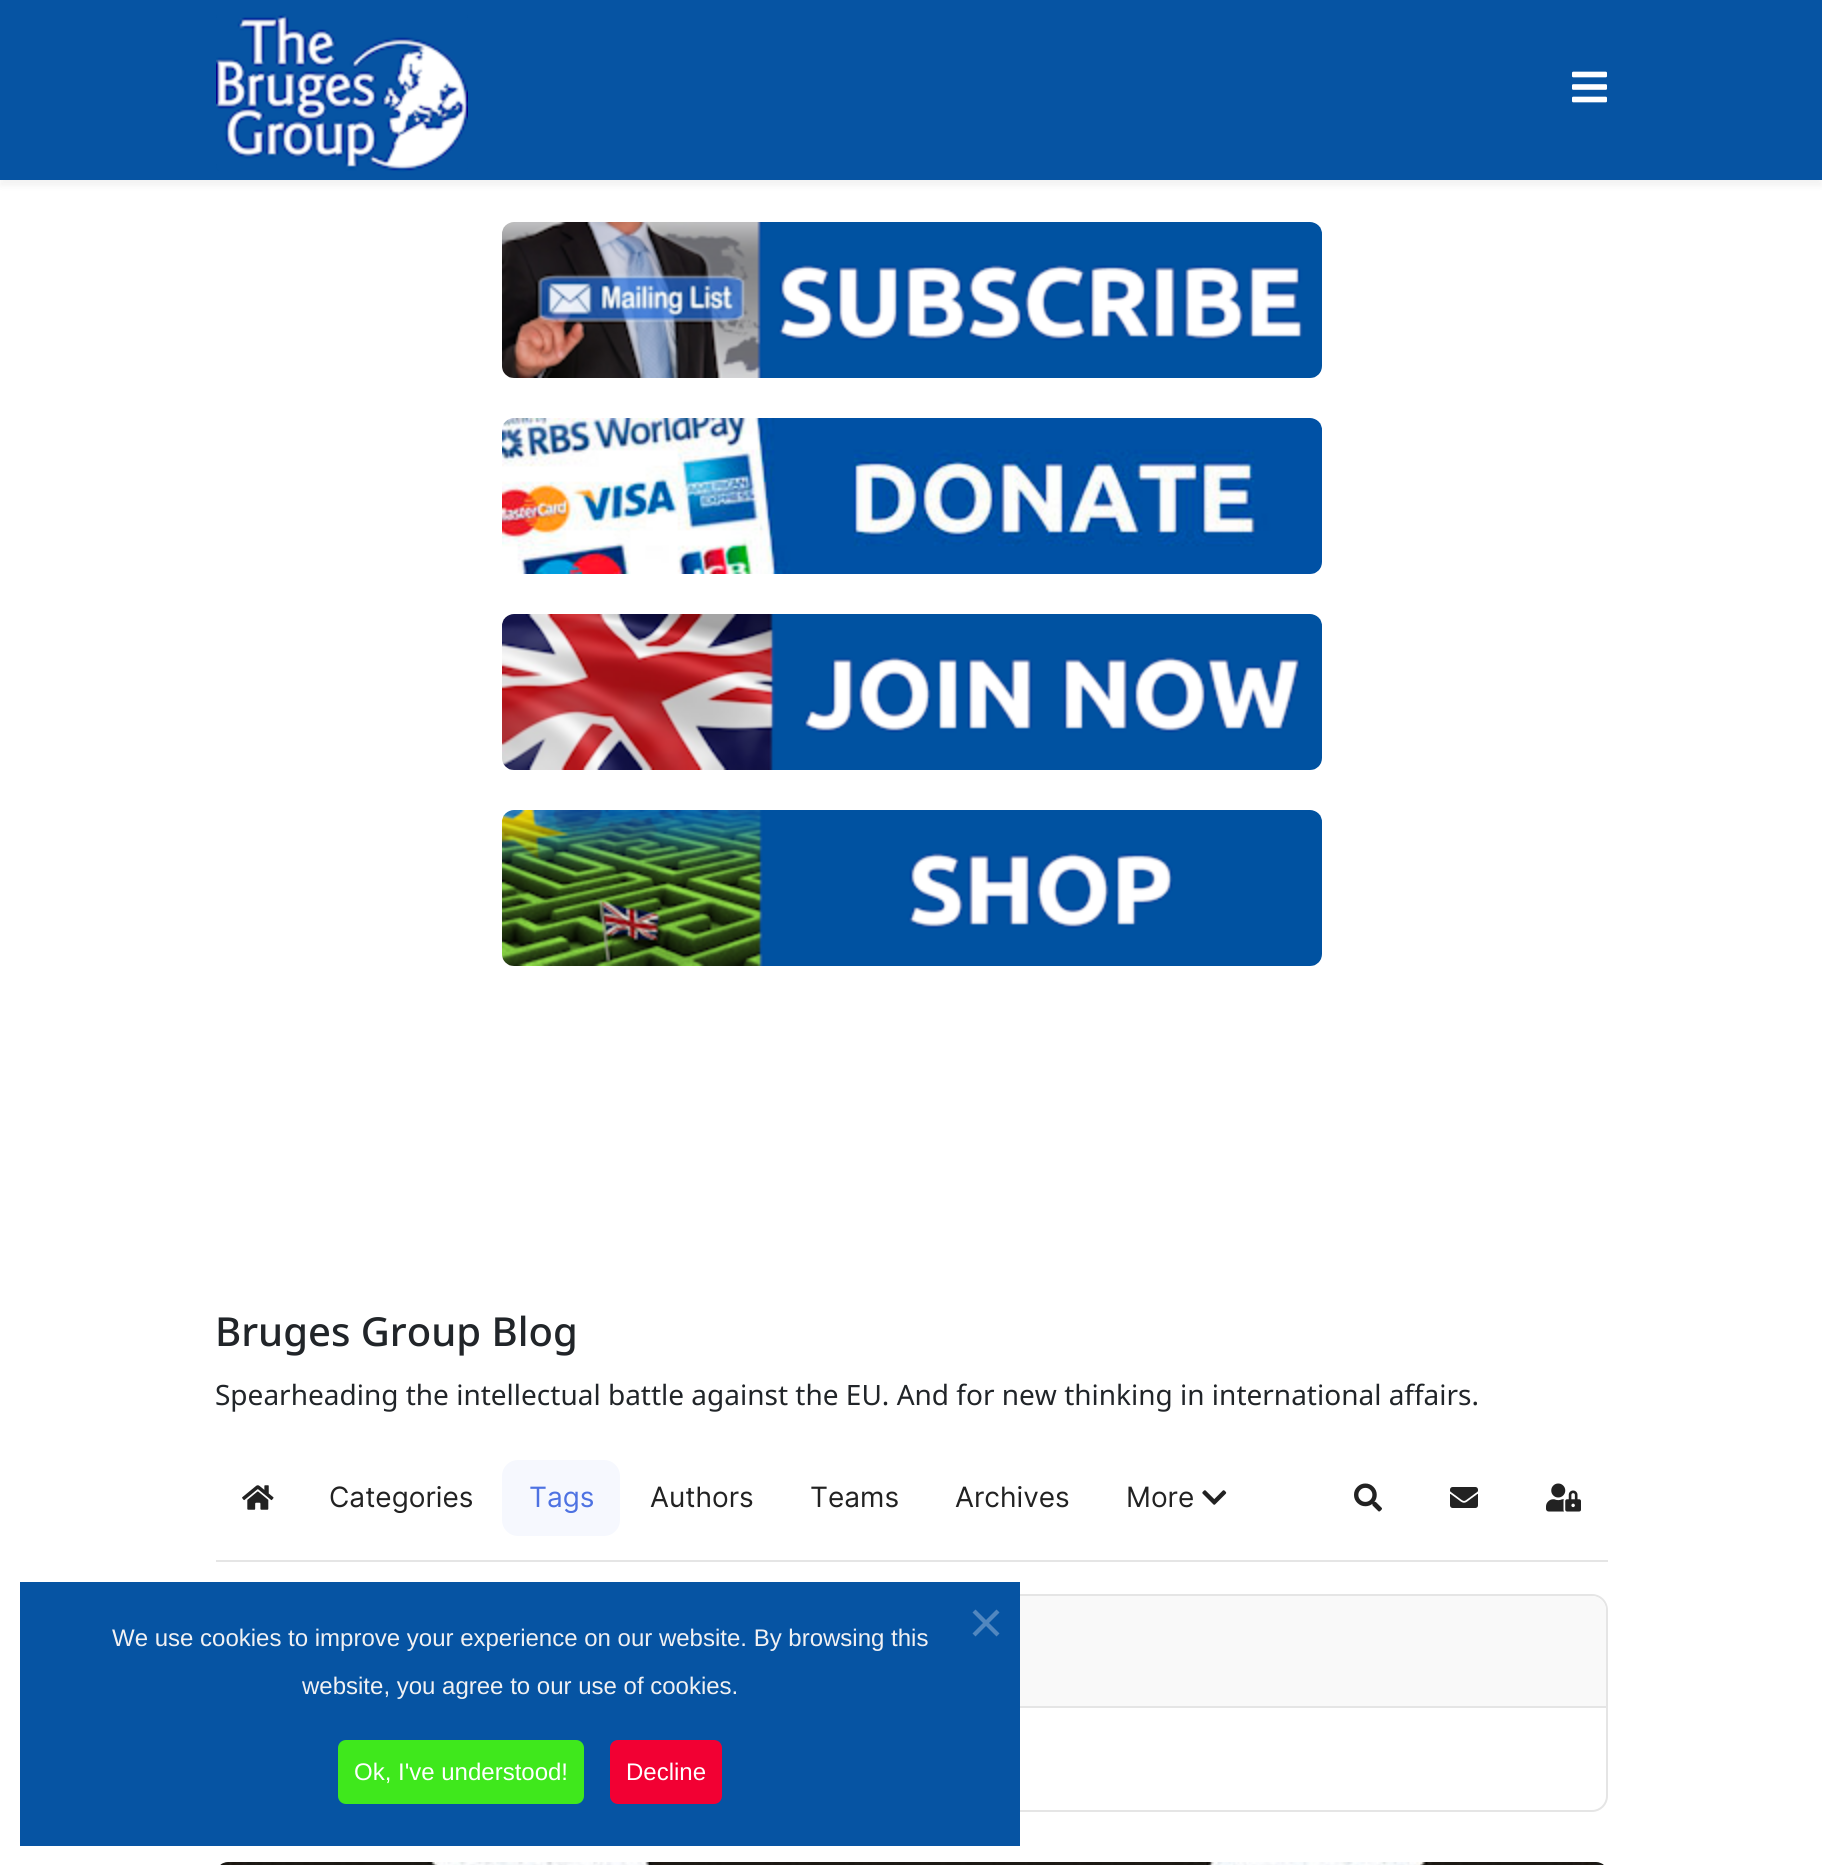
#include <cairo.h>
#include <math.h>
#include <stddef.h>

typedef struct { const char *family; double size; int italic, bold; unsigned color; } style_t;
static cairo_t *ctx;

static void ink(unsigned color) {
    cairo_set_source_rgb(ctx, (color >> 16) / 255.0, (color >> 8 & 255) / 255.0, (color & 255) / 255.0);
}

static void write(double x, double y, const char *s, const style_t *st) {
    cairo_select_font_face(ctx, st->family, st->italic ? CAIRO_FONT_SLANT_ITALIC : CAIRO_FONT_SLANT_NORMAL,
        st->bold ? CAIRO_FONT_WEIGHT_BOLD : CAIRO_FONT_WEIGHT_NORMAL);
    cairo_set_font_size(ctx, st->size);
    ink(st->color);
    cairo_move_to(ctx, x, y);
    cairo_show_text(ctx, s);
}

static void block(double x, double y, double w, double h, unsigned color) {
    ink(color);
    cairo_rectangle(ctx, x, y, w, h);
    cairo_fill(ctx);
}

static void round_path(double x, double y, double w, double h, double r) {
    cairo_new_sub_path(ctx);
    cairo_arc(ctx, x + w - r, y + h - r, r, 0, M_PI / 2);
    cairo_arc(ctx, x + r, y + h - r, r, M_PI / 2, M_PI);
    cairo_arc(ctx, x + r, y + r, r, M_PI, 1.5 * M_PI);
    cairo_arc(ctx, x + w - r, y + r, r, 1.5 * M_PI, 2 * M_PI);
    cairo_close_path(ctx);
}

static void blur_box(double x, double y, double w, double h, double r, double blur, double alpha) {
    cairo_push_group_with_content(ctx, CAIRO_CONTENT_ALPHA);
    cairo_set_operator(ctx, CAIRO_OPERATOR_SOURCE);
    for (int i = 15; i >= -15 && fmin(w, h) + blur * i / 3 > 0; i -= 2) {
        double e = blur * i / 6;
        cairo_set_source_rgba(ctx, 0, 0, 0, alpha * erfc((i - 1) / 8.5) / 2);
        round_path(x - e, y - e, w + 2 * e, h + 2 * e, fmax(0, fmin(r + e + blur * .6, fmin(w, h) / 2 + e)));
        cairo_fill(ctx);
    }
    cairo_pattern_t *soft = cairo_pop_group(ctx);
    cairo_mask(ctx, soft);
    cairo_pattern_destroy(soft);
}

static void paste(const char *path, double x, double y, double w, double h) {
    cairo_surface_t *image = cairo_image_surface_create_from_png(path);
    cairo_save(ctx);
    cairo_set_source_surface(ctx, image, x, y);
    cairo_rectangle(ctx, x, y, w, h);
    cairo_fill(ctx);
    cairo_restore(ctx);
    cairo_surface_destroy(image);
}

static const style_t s1 = {"Noto Sans Medium", 40, 0, 0, 0x212529};
static const style_t s2 = {"Noto Sans", 28, 0, 0, 0x212529};
static const style_t s3 = {"Inter", 28, 0, 0, 0x222222};
static const style_t s4 = {"Inter", 28, 0, 0, 0x4e72e2};
static const style_t s5 = {"Liberation Sans", 24, 0, 0, 0xf1f1f3};
static const style_t s6 = {"Liberation Sans", 24, 0, 0, 0xffffff};

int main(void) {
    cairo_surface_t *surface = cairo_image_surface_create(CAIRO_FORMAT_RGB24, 1822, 1865);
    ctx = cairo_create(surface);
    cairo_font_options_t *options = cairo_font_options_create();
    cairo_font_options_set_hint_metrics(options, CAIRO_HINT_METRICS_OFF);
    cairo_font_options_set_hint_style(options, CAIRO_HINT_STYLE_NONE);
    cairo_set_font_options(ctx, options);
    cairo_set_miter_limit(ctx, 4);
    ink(0xffffff);
    cairo_paint(ctx);
    ink(0x000000);
    blur_box(0, 6, 1822, 180, 0, 3, 0.05);
    block(0, 0, 1822, 180, 0x0654a3);
    paste("pic1.png", 216, 14, 252, 158);
    paste("pic2.png", 1572, 71, 35, 32);
    paste("pic3.png", 502, 222, 820, 156);
    paste("pic4.png", 502, 418, 820, 156);
    paste("pic5.png", 502, 614, 820, 156);
    paste("pic6.png", 502, 810, 820, 156);
    write(215, 1346, "Bruges Group Blog", &s1);
    write(215, 1405, "Spearheading the intellectual battle against the EU. And for new thinking in international affairs.", &s2);
    paste("pic7.png", 242, 1485, 32, 25);
    write(329, 1507, "Categories", &s3);
    ink(0xf6f8fe);
    round_path(502, 1460, 118, 76, 16);
    cairo_fill(ctx);
    write(529, 1507, "Tags", &s4);
    write(650, 1507, "Authors", &s3);
    write(810, 1507, "Teams", &s3);
    write(955, 1507, "Archives", &s3);
    write(1126, 1507, "More", &s3);
    paste("pic8.png", 1202, 1490, 25, 15);
    paste("pic9.png", 1354, 1483, 28, 29);
    paste("pic10.png", 1450, 1487, 28, 21);
    paste("pic11.png", 1546, 1483, 35, 29);
    block(216, 1560, 1392, 2, 0xe5e5e5);
    round_path(217, 1595, 1390, 216, 15);
    cairo_stroke(ctx);
    ink(0xf9f9f9);
    cairo_new_path(ctx);
    cairo_move_to(ctx, 232, 1596);
    cairo_line_to(ctx, 1592, 1596);
    cairo_curve_to(ctx, 1599.5, 1596, 1606, 1602.5, 1606, 1610);
    cairo_line_to(ctx, 1606, 1708);
    cairo_line_to(ctx, 218, 1708);
    cairo_line_to(ctx, 218, 1610);
    cairo_curve_to(ctx, 218, 1602.5, 224.5, 1596, 232, 1596);
    cairo_close_path(ctx);
    cairo_fill(ctx);
    block(1020, 1706, 586, 2, 0xe5e5e5);
    paste("pic12.png", 220, 1862, 1384, 3);
    block(20, 1582, 1000, 264, 0x0654a3);
    ink(0x5187bf);
    cairo_new_path(ctx);
    cairo_move_to(ctx, 996.5, 1609.5);
    cairo_line_to(ctx, 999.5, 1612.5);
    cairo_line_to(ctx, 975.5, 1636.5);
    cairo_line_to(ctx, 972.5, 1633.5);
    cairo_close_path(ctx);
    cairo_fill(ctx);
    cairo_new_path(ctx);
    cairo_move_to(ctx, 972.5, 1612.5);
    cairo_line_to(ctx, 975.5, 1609.5);
    cairo_line_to(ctx, 999.5, 1633.5);
    cairo_line_to(ctx, 996.5, 1636.5);
    cairo_close_path(ctx);
    cairo_fill(ctx);
    write(112, 1646, "We use cookies to improve your experience on our website. By browsing this", &s5);
    write(302, 1694, "website, you agree to our use of cookies.", &s5);
    ink(0x3fe81c);
    round_path(338, 1740, 246, 64, 8);
    cairo_fill(ctx);
    write(354, 1780, "Ok, I've understood!", &s6);
    ink(0xf20033);
    round_path(610, 1740, 112, 64, 8);
    cairo_fill(ctx);
    write(626, 1780, "Decline", &s6);
    cairo_surface_write_to_png(surface, "screenshot.png");
    cairo_font_options_destroy(options);
    cairo_destroy(ctx);
    cairo_surface_destroy(surface);
    return 0;
}
